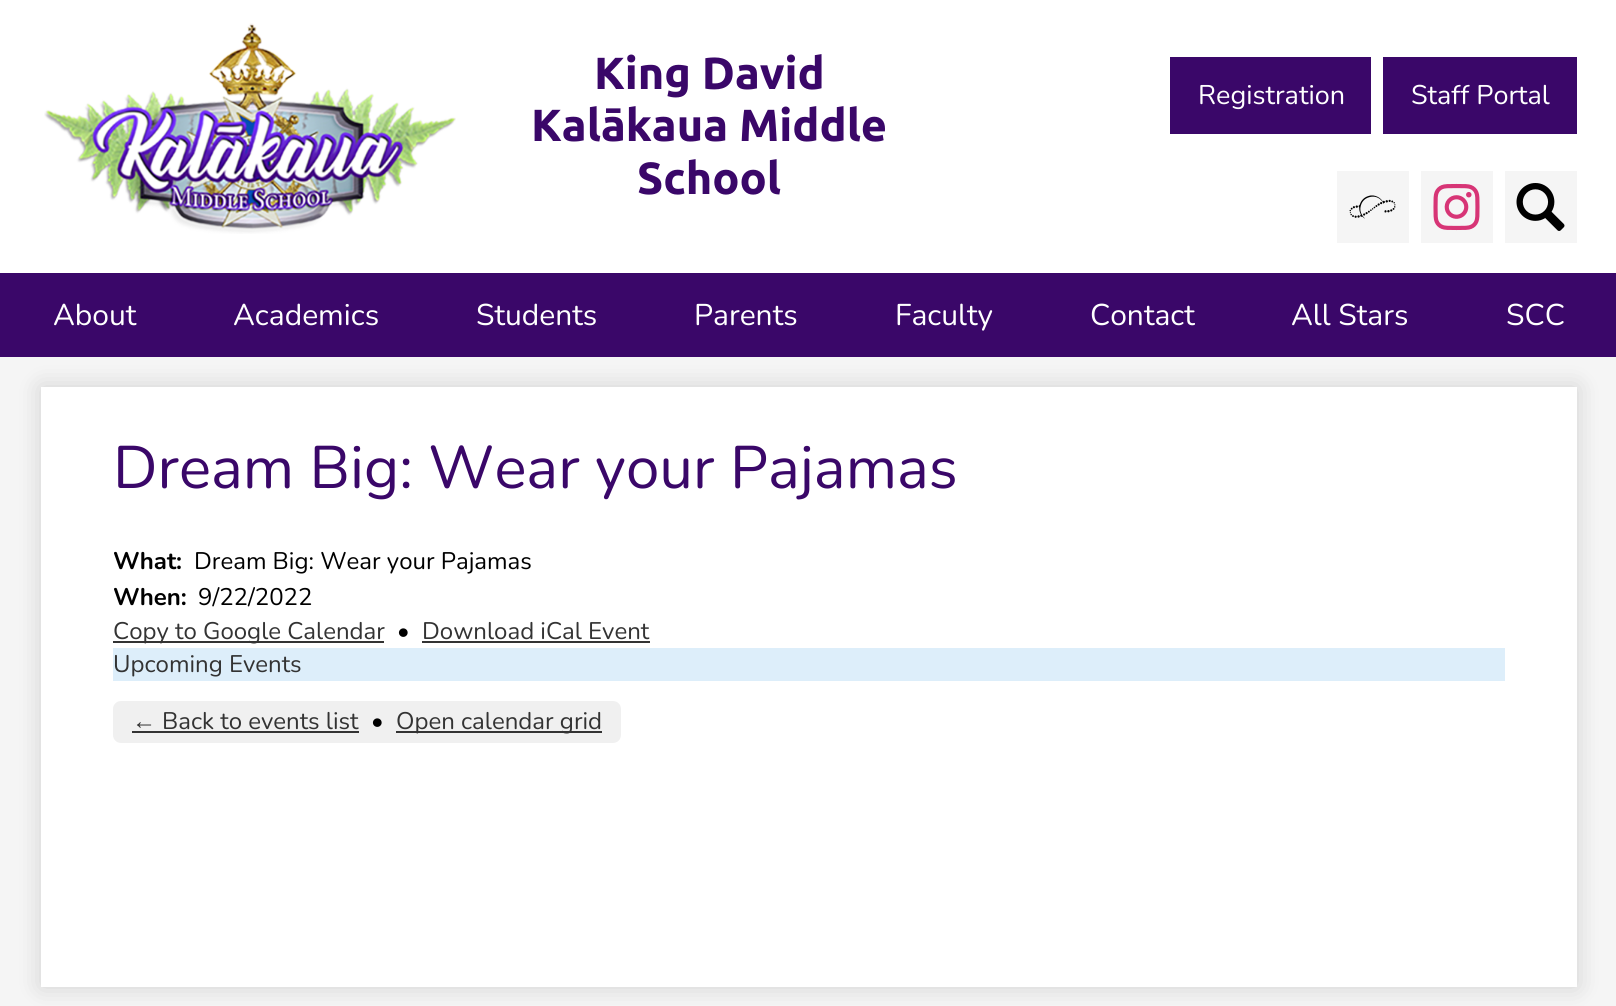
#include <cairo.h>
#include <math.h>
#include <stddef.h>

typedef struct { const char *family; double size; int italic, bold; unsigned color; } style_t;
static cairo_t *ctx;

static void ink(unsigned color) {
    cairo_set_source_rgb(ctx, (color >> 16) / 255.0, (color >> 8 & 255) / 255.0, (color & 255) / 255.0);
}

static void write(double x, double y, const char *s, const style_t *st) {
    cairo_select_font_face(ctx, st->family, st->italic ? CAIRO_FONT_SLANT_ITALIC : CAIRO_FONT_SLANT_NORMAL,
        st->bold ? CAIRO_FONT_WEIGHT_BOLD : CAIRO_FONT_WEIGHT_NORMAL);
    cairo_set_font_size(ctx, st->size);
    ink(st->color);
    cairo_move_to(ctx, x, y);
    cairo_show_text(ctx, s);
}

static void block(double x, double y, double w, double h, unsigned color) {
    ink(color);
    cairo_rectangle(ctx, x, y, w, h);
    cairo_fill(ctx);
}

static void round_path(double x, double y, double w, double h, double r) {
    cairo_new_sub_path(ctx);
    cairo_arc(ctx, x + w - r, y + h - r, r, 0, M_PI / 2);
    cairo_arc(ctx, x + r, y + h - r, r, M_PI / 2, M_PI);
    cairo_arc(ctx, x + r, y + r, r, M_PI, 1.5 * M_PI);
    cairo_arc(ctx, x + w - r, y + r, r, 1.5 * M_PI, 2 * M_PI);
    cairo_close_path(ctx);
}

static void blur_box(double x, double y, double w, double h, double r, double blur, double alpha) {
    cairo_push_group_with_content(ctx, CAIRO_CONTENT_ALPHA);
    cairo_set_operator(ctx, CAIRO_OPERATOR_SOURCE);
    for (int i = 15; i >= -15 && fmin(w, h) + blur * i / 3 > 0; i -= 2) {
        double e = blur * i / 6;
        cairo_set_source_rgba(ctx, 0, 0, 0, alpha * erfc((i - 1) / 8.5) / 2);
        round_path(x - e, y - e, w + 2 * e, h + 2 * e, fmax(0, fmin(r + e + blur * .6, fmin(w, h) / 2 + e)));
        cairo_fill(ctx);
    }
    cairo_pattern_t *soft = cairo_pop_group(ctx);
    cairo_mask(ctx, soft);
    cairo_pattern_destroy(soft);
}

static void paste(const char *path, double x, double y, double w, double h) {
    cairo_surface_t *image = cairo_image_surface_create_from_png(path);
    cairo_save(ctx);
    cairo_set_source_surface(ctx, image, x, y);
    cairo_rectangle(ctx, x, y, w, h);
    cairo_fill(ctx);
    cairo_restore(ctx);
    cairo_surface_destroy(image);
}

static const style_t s1 = {"Ubuntu", 45, 0, 1, 0x3a0769};
static const style_t s2 = {"Nunito", 27, 0, 0, 0xffffff};
static const style_t s3 = {"Nunito", 30, 0, 0, 0xffffff};
static const style_t s4 = {"Nunito", 60, 0, 0, 0x3a0769};
static const style_t s5 = {"Nunito", 24, 0, 1, 0x000000};
static const style_t s6 = {"Nunito", 24, 0, 0, 0x000000};
static const style_t s7 = {"Nunito", 24, 0, 0, 0x333333};
static const style_t s8 = {"Liberation Sans", 24, 0, 0, 0x333333};

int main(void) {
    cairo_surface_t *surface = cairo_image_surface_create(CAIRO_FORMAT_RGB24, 1616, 1006);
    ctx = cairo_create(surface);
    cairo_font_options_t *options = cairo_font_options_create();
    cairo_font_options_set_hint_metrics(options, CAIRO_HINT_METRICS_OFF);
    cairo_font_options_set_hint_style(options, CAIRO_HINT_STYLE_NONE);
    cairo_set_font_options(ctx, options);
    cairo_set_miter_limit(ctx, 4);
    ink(0xf5f5f5);
    cairo_paint(ctx);
    block(0, 0, 1616, 273, 0xffffff);
    paste("pic1.png", 44, 23, 412, 211);
    write(594, 89, "King David", &s1);
    write(531, 141, "Kalākaua Middle", &s1);
    write(637, 194, "School", &s1);
    block(1170, 57, 201, 77, 0x3a0769);
    write(1198, 104, "Registration", &s2);
    block(1383, 57, 194, 77, 0x3a0769);
    write(1411, 104, "Staff Portal", &s2);
    block(1337, 171, 72, 72, 0xf5f5f5);
    paste("pic2.png", 1349, 195, 47, 24);
    block(1421, 171, 72, 72, 0xf5f5f5);
    paste("pic3.png", 1433, 183, 47, 48);
    block(1505, 171, 72, 72, 0xf5f5f5);
    paste("pic4.png", 1516, 183, 49, 48);
    ink(0x000000);
    blur_box(41, 387, 1536, 600, 0, 12, 0.15);
    block(0, 273, 1616, 84, 0x3a0769);
    write(53, 325, "About", &s3);
    write(233, 325, "Academics", &s3);
    write(476, 325, "Students", &s3);
    write(694, 325, "Parents", &s3);
    write(895, 325, "Faculty", &s3);
    write(1090, 325, "Contact", &s3);
    write(1291, 325, "All Stars", &s3);
    write(1506, 325, "SCC", &s3);
    block(41, 387, 1536, 600, 0xffffff);
    write(113, 488, "Dream Big: Wear your Pajamas", &s4);
    write(113, 569, "What:", &s5);
    write(194, 569, "Dream Big: Wear your Pajamas", &s6);
    write(113, 605, "When:", &s5);
    write(198, 605, "9/22/2022", &s6);
    block(113, 641, 271, 2, 0x333333);
    write(113, 639, "Copy to Google Calendar", &s7);
    write(397, 639, "•", &s6);
    write(422, 639, "Download iCal Event", &s7);
    block(422, 641, 228, 2, 0x333333);
    block(113, 648, 1392, 33, 0xddeefa);
    write(113, 672, "Upcoming Events", &s7);
    ink(0xf0f0f0);
    round_path(113, 701, 508, 42, 8);
    cairo_fill(ctx);
    write(132, 729, "←", &s8);
    block(132, 731, 227, 2, 0x333333);
    write(162, 729, "Back to events list", &s7);
    write(371, 729, "•", &s6);
    block(396, 731, 206, 2, 0x333333);
    write(396, 729, "Open calendar grid", &s7);
    cairo_surface_write_to_png(surface, "screenshot.png");
    cairo_font_options_destroy(options);
    cairo_destroy(ctx);
    cairo_surface_destroy(surface);
    return 0;
}
